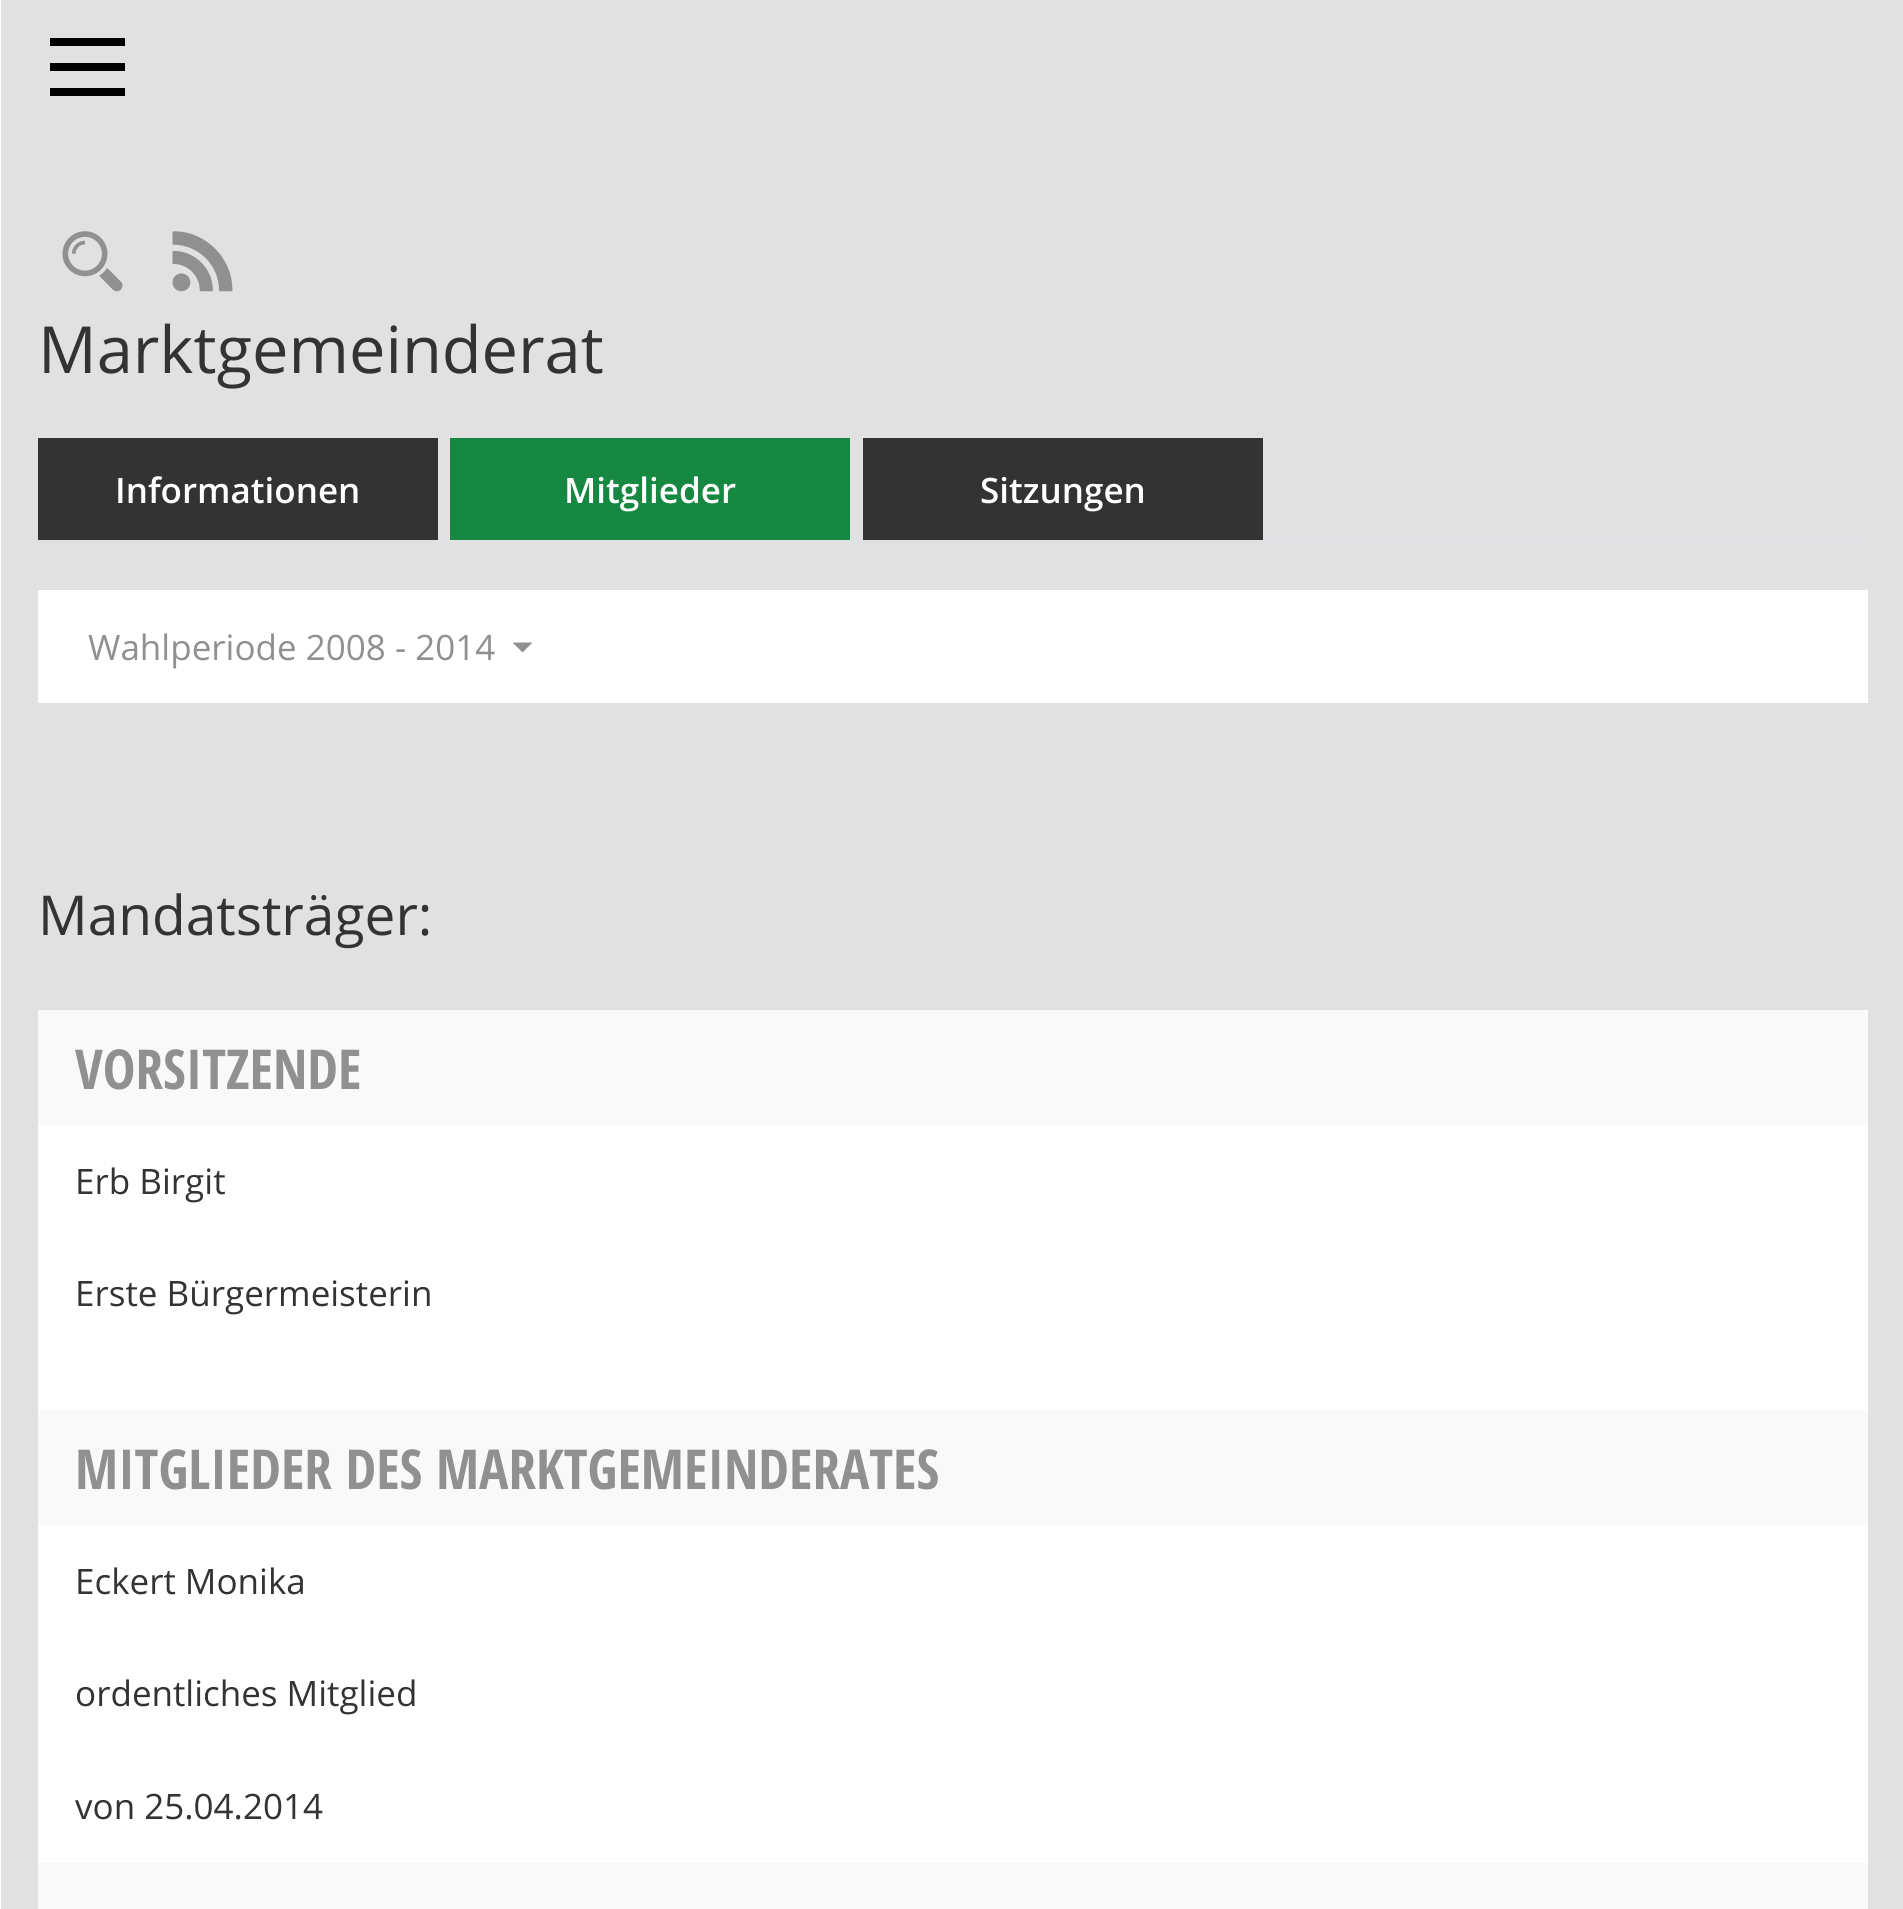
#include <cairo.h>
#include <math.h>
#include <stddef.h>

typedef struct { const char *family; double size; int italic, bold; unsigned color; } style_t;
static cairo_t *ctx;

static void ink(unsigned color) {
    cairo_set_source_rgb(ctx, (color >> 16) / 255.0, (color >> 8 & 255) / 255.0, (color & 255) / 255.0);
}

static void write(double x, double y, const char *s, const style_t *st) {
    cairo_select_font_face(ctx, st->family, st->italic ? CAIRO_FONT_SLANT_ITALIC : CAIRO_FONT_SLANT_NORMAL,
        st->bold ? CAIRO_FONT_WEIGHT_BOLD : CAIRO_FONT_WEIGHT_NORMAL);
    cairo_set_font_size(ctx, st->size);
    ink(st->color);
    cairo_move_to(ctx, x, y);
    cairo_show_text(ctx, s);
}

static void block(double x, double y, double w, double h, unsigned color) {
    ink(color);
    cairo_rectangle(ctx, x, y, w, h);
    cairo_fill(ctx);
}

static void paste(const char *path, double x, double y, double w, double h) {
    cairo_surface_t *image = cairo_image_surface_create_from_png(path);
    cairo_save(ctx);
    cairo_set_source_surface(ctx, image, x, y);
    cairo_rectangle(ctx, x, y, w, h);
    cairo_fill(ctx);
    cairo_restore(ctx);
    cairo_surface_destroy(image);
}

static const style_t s1 = {"Open Sans", 65, 0, 0, 0x333333};
static const style_t s2 = {"Open Sans SemiBold", 35, 0, 0, 0xffffff};
static const style_t s3 = {"Open Sans", 35, 0, 0, 0x909090};
static const style_t s4 = {"Open Sans", 55, 0, 0, 0x333333};
static const style_t s5 = {"Open Sans Condensed", 55, 0, 1, 0x909090};
static const style_t s6 = {"Open Sans", 35, 0, 0, 0x333333};

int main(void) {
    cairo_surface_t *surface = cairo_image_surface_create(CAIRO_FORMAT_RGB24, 1903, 1909);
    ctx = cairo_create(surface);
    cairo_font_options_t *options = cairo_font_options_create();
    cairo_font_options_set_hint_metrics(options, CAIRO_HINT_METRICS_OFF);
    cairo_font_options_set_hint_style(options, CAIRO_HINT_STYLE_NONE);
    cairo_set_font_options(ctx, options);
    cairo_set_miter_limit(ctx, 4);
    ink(0xe1e1e1);
    cairo_paint(ctx);
    block(0, 0, 1, 1909, 0xffffff);
    block(50, 38, 75, 8, 0x000000);
    block(50, 63, 75, 8, 0x000000);
    block(50, 88, 75, 8, 0x000000);
    paste("pic1.png", 62, 231, 61, 61);
    paste("pic2.png", 172, 231, 61, 61);
    write(38, 373, "Marktgemeinderat", &s1);
    block(38, 538, 1830, 3, 0xdee2e6);
    block(38, 438, 400, 102, 0x333333);
    write(115, 503, "Informationen", &s2);
    block(450, 438, 400, 102, 0x178842);
    write(564, 503, "Mitglieder", &s2);
    block(863, 438, 400, 102, 0x333333);
    write(980, 503, "Sitzungen", &s2);
    block(38, 590, 1830, 113, 0xffffff);
    write(88, 660, "Wahlperiode 2008 - 2014", &s3);
    cairo_new_path(ctx);
    cairo_move_to(ctx, 512.5, 642.5);
    cairo_line_to(ctx, 532.5, 642.5);
    cairo_line_to(ctx, 522.5, 652.5);
    cairo_close_path(ctx);
    cairo_fill(ctx);
    write(38, 935, "Mandatsträger:", &s4);
    block(38, 1125, 1830, 738, 0xffffff);
    block(38, 1010, 1830, 115, 0xf9f9f9);
    write(75, 1089, "VORSITZENDE", &s5);
    write(75, 1194, "Erb Birgit", &s6);
    write(75, 1306, "Erste Bürgermeisterin", &s6);
    block(38, 1410, 1830, 115, 0xf9f9f9);
    write(75, 1489, "MITGLIEDER DES MARKTGEMEINDERATES", &s5);
    write(75, 1594, "Eckert Monika", &s6);
    write(75, 1706, "ordentliches Mitglied", &s6);
    write(75, 1819, "von 25.04.2014", &s6);
    block(38, 1863, 1830, 46, 0xf9f9f9);
    cairo_surface_write_to_png(surface, "screenshot.png");
    cairo_font_options_destroy(options);
    cairo_destroy(ctx);
    cairo_surface_destroy(surface);
    return 0;
}
